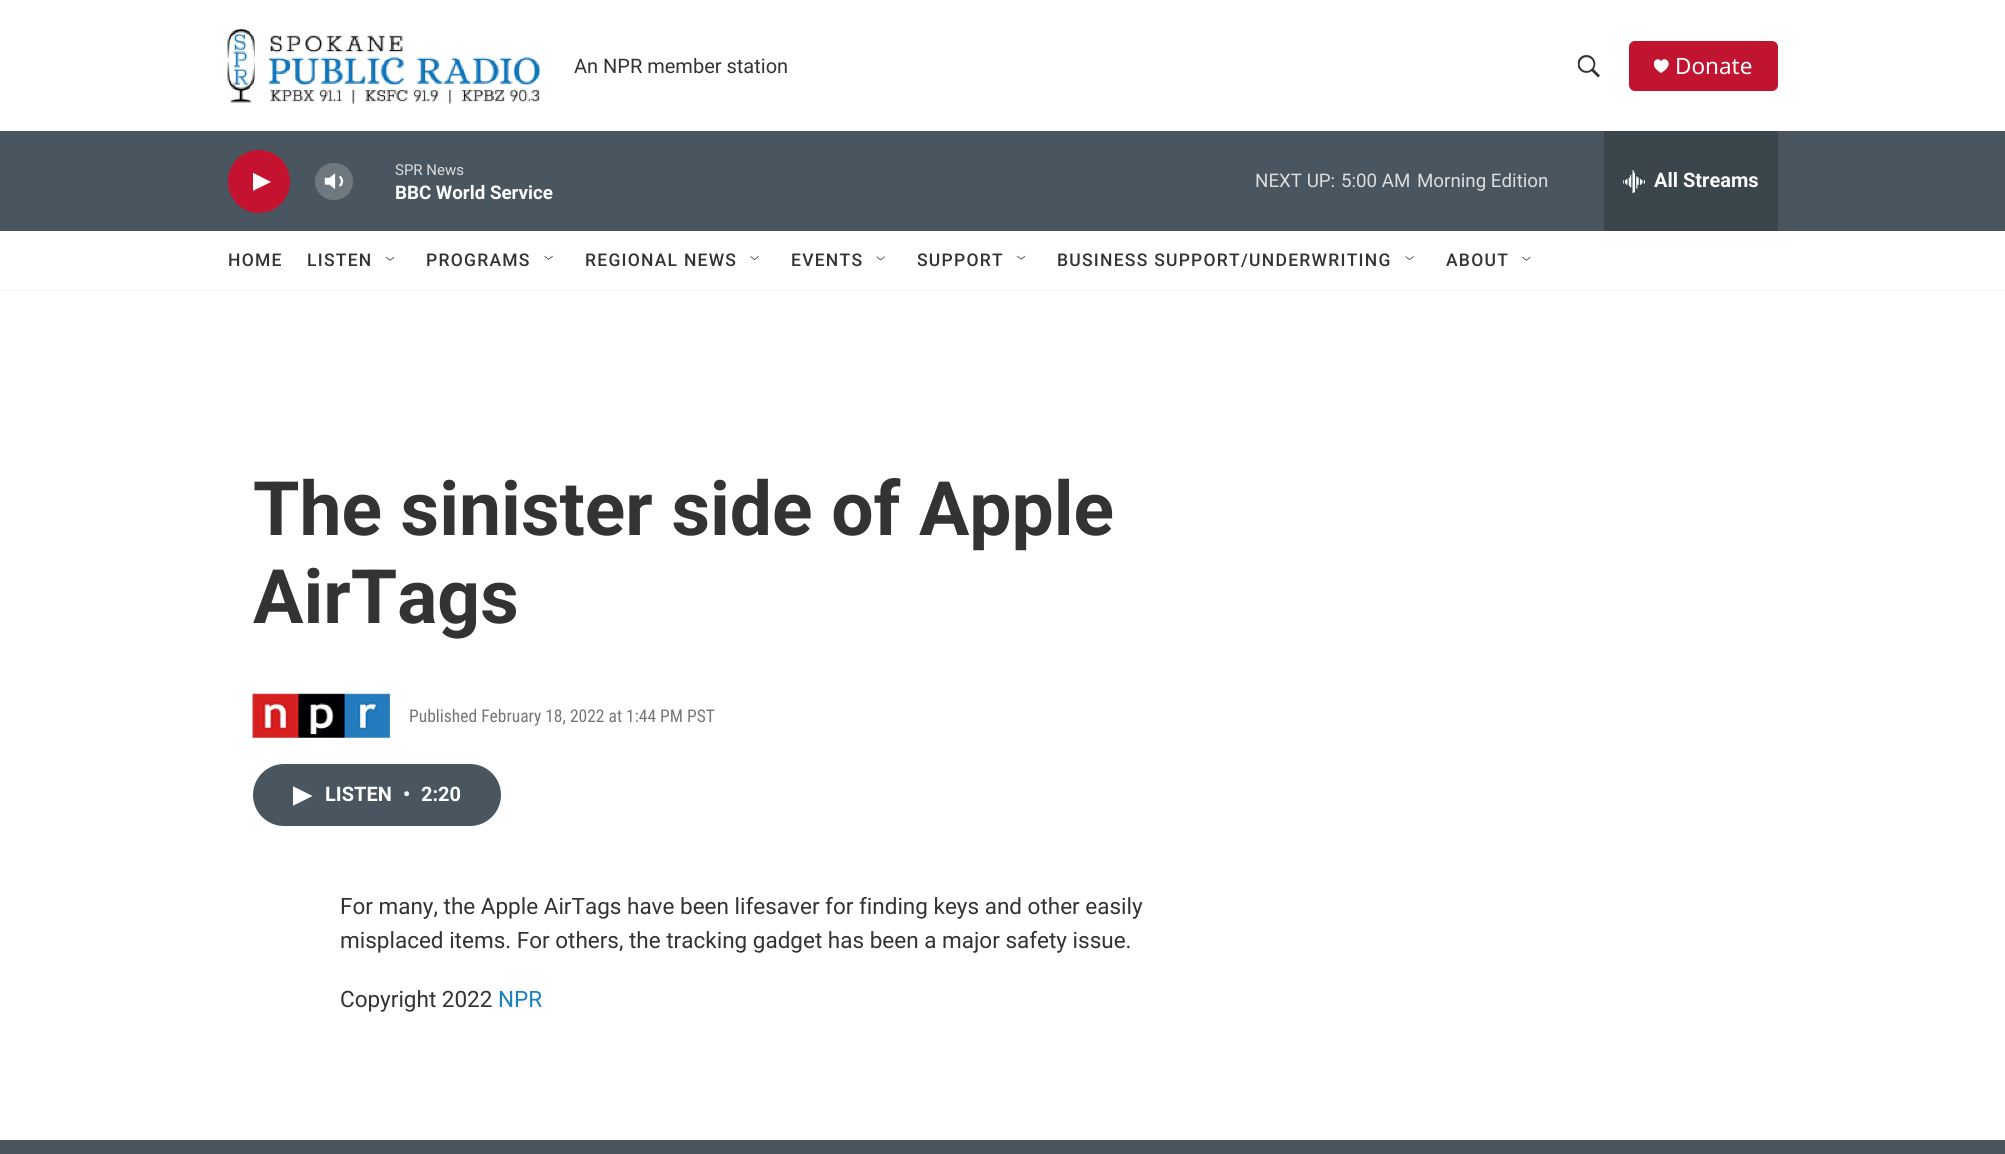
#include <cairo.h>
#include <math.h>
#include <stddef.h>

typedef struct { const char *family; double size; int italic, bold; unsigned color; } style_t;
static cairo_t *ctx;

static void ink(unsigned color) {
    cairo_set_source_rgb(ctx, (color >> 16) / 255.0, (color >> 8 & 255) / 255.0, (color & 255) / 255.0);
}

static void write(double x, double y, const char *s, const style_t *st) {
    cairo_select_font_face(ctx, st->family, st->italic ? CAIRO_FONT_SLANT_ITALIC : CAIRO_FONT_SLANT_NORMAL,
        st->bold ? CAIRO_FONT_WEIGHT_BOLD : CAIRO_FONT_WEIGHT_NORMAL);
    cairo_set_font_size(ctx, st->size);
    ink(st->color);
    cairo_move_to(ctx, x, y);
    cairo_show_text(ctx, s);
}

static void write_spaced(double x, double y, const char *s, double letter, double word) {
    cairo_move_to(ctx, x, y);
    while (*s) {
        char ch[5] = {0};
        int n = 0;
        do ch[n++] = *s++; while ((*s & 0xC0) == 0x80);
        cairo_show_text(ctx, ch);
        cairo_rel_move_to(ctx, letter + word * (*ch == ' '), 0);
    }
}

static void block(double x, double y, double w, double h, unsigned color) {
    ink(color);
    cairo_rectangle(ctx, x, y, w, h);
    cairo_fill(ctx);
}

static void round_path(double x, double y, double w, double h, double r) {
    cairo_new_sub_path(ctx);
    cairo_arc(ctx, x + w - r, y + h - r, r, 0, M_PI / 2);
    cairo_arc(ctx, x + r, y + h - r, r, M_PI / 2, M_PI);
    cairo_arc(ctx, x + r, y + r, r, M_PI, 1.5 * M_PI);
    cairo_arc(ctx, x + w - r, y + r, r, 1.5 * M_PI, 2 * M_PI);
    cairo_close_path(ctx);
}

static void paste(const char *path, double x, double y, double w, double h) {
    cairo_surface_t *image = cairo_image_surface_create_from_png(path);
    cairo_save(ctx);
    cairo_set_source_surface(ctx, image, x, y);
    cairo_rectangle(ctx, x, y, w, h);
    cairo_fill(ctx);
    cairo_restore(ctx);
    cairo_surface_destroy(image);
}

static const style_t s1 = {"Roboto", 20, 0, 0, 0x333333};
static const style_t s2 = {"Noto Sans", 22.5, 0, 0, 0xffffff};
static const style_t s3 = {"Roboto", 15, 0, 0, 0xdbdddf};
static const style_t s4 = {"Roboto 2", 18.75, 0, 1, 0xffffff};
static const style_t s5 = {"Roboto", 18.75, 0, 0, 0xdbdddf};
static const style_t s6 = {"Roboto 2", 20, 0, 1, 0xffffff};
static const style_t s7 = {"Roboto", 75, 0, 1, 0x333333};
static const style_t s8 = {"Roboto Condensed", 17.5, 0, 0, 0x767676};
static const style_t s9 = {"Roboto", 22.5, 0, 0, 0x333333};
static const style_t s10 = {"Roboto", 22.5, 0, 0, 0x1a7fc3};

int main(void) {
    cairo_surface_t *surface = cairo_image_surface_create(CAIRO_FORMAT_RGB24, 2005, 1154);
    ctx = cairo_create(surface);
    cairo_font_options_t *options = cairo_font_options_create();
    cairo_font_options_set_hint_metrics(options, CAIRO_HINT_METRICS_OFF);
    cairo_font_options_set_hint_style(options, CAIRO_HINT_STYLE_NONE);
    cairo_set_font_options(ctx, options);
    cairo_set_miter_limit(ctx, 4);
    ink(0xffffff);
    cairo_paint(ctx);
    block(0, 290, 2005, 1, 0xf5f5f5);
    paste("pic1.png", 227, 28, 313, 76);
    write(574, 73, "An NPR member station", &s1);
    paste("pic2.png", 1578, 55, 22, 23);
    ink(0xc11431);
    round_path(1629, 41, 149, 50, 6);
    cairo_fill(ctx);
    cairo_save(ctx);
    cairo_rectangle(ctx, 1654, 59, 15, 15);
    cairo_clip(ctx);
    ink(0xffffff);
    cairo_new_path(ctx);
    cairo_move_to(ctx, 1661, 61.5);
    cairo_curve_to(ctx, 1659, 55, 1645.5, 63.5, 1661, 73);
    cairo_curve_to(ctx, 1677, 63.5, 1663.5, 55, 1661, 61.5);
    cairo_close_path(ctx);
    cairo_fill(ctx);
    cairo_restore(ctx);
    write(1675, 74, "Donate", &s2);
    block(0, 131, 2005, 100, 0x4a565f);
    ink(0xc41230);
    round_path(228, 150, 62, 63, 31);
    cairo_fill(ctx);
    cairo_save(ctx);
    cairo_rectangle(ctx, 253, 170, 18, 24);
    cairo_clip(ctx);
    ink(0xffffff);
    cairo_new_path(ctx);
    cairo_move_to(ctx, 252.5, 172.5);
    cairo_line_to(ctx, 271, 182);
    cairo_line_to(ctx, 252.5, 191);
    cairo_close_path(ctx);
    cairo_fill(ctx);
    cairo_restore(ctx);
    paste("pic3.png", 324, 173, 20, 17);
    cairo_set_source_rgba(ctx, 1, 1, 1, 0.2);
    round_path(315, 163, 38, 37, 18.5);
    cairo_fill(ctx);
    write(395, 175, "SPR News", &s3);
    write(395, 199, "BBC World Service", &s4);
    write(1255, 187, "NEXT UP:", &s5);
    write(1341, 187, "5:00 AM", &s5);
    write(1417, 187, "Morning Edition", &s5);
    block(1604, 131, 174, 100, 0x3b454c);
    paste("pic4.png", 1623, 170, 22, 23);
    write(1654, 187, "All Streams", &s6);
    cairo_select_font_face(ctx, "Roboto Medium", CAIRO_FONT_SLANT_NORMAL, CAIRO_FONT_WEIGHT_NORMAL);
    cairo_set_font_size(ctx, 17.5);
    ink(0x333333);
    write_spaced(228, 266, "HOME", 1.25, 0);
    write_spaced(307, 266, "LISTEN", 1.25, 0);
    paste("pic5.png", 386, 256, 9, 5);
    write_spaced(426, 266, "PROGRAMS", 1.25, 0);
    paste("pic6.png", 544, 255, 9, 5);
    write_spaced(585, 266, "REGIONAL NEWS", 1.25, 0);
    paste("pic7.png", 750, 256, 9, 4);
    write_spaced(791, 266, "EVENTS", 1.25, 0);
    paste("pic8.png", 876, 256, 9, 5);
    write_spaced(917, 266, "SUPPORT", 1.25, 0);
    paste("pic9.png", 1017, 255, 9, 5);
    write_spaced(1057, 266, "BUSINESS SUPPORT/UNDERWRITING", 1.25, 0);
    paste("pic7.png", 1405, 256, 9, 4);
    write_spaced(1446, 266, "ABOUT", 1.25, 0);
    paste("pic10.png", 1522, 256, 9, 5);
    write(253, 535, "The sinister side of Apple", &s7);
    write(253, 623, "AirTags", &s7);
    paste("pic11.png", 252, 693, 138, 46);
    write(409, 722, "Published February 18, 2022 at 1:44 PM PST", &s8);
    ink(0x4a565f);
    round_path(253, 764, 248, 62, 31);
    cairo_fill(ctx);
    cairo_save(ctx);
    cairo_rectangle(ctx, 293, 786, 20, 20);
    cairo_clip(ctx);
    ink(0xffffff);
    cairo_new_path(ctx);
    cairo_move_to(ctx, 292.5, 786);
    cairo_line_to(ctx, 312.5, 796);
    cairo_line_to(ctx, 292.5, 806);
    cairo_close_path(ctx);
    cairo_fill(ctx);
    cairo_restore(ctx);
    write(325, 801, "LISTEN", &s6);
    write(403, 801, "•", &s6);
    write(421, 801, "2:20", &s6);
    write(340, 914, "For many, the Apple AirTags have been lifesaver for finding keys and other easily", &s9);
    write(340, 948, "misplaced items. For others, the tracking gadget has been a major safety issue.", &s9);
    write(340, 1007, "Copyright 2022", &s9);
    write(498, 1007, "NPR", &s10);
    block(0, 1140, 2005, 14, 0x4a565f);
    cairo_surface_write_to_png(surface, "screenshot.png");
    cairo_font_options_destroy(options);
    cairo_destroy(ctx);
    cairo_surface_destroy(surface);
    return 0;
}
